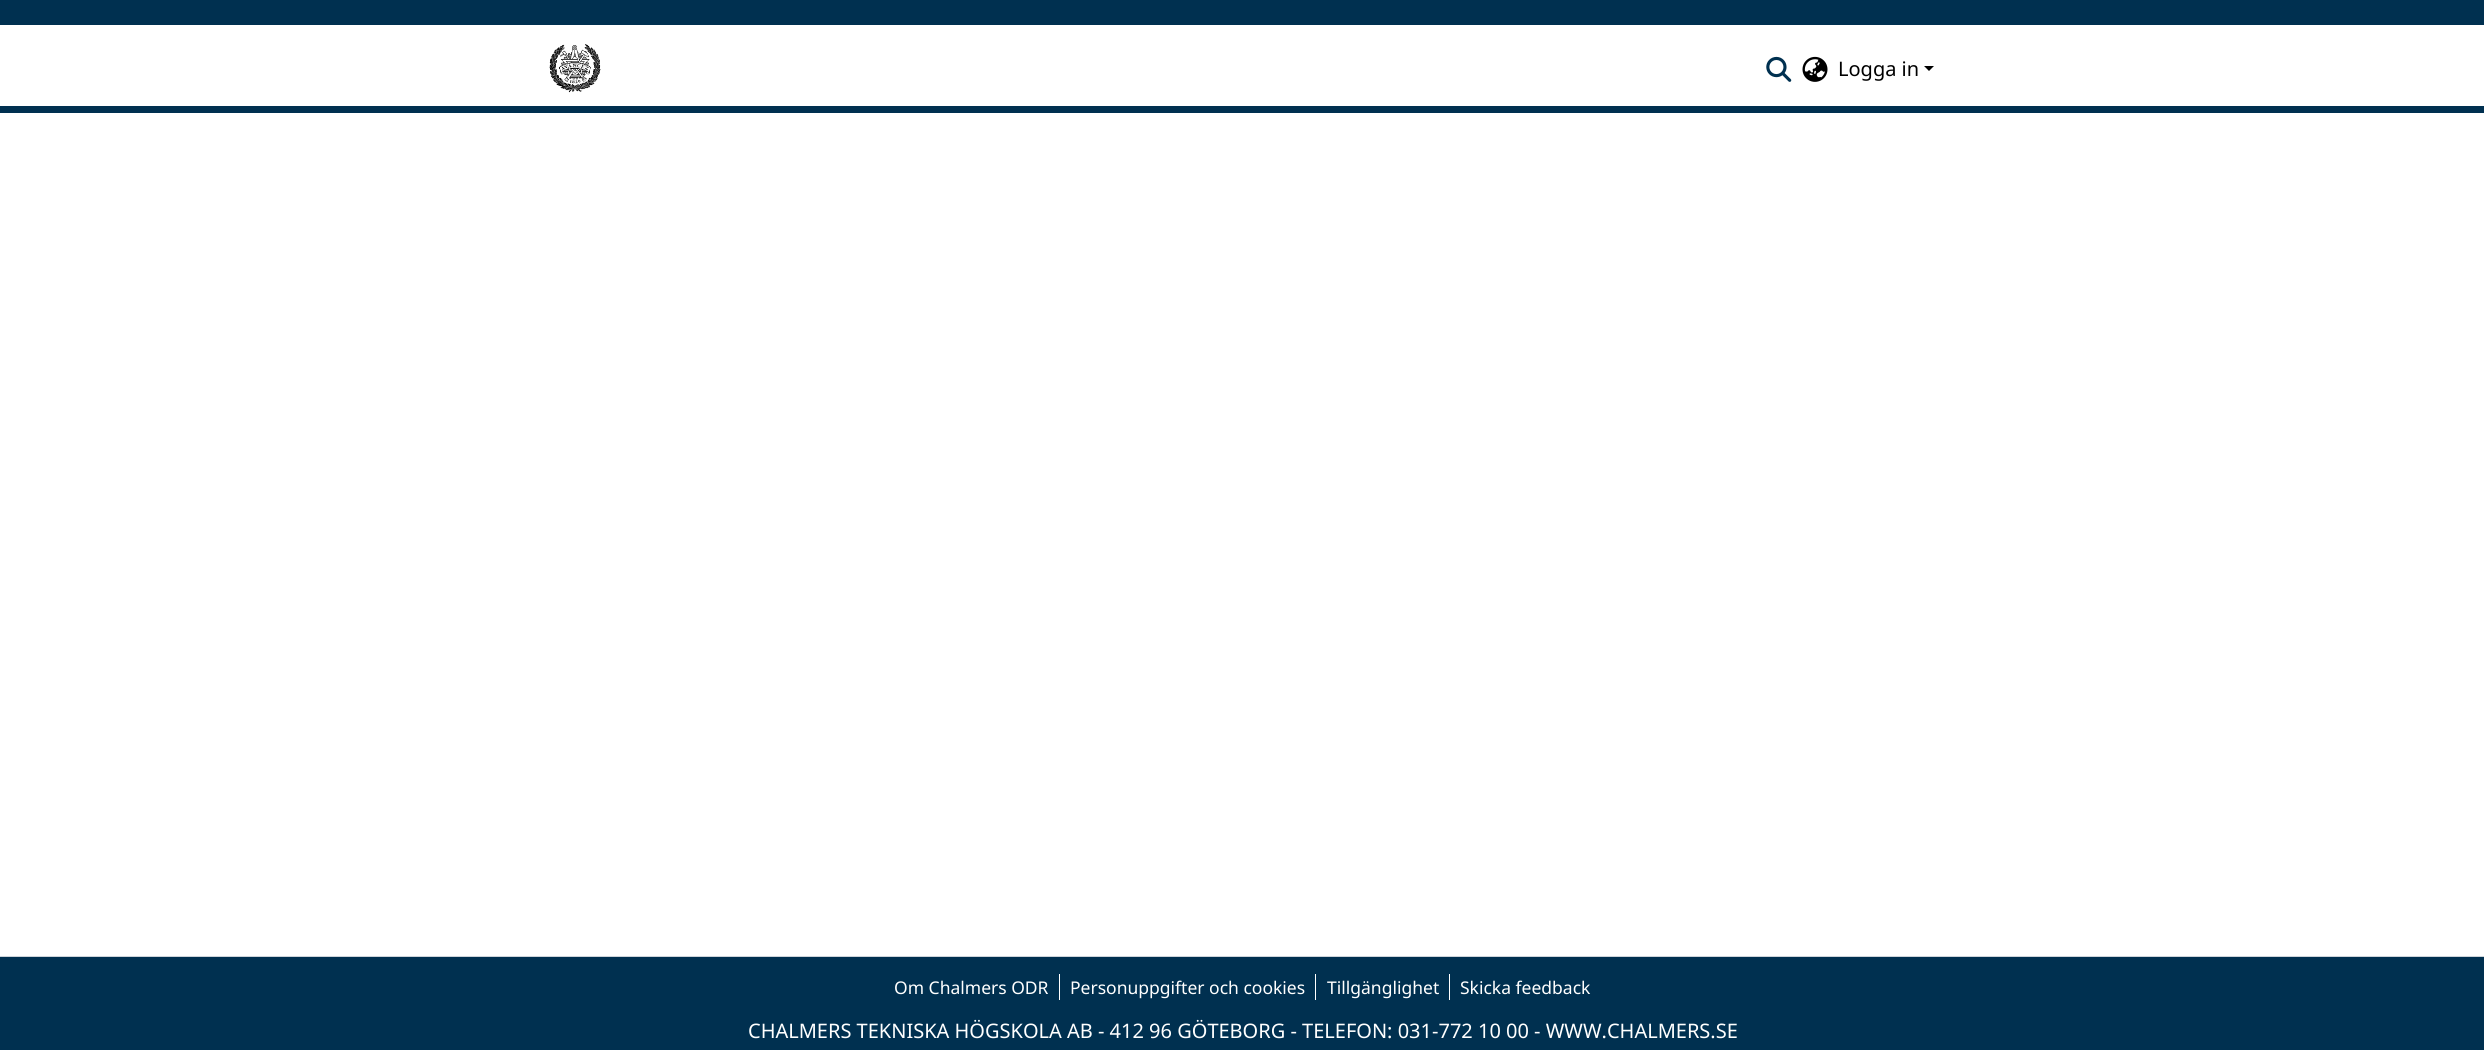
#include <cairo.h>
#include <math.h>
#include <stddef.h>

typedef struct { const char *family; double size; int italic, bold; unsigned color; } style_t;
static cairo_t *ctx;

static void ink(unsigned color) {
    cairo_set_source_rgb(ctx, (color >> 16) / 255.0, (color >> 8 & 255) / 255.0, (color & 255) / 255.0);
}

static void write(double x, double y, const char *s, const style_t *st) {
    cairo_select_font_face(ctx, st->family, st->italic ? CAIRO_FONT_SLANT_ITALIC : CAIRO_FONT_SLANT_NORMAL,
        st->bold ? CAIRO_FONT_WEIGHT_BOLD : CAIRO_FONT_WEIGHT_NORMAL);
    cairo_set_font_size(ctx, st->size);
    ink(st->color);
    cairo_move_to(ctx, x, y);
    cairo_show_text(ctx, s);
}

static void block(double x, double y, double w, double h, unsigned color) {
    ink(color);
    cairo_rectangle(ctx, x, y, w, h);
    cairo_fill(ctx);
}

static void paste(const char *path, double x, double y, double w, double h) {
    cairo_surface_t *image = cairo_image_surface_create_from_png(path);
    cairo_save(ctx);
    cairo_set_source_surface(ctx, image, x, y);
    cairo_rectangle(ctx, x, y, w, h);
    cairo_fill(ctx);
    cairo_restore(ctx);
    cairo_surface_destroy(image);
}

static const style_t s1 = {"Noto Sans", 20, 0, 0, 0x000000};
static const style_t s2 = {"Noto Sans", 17.5, 0, 0, 0xffffff};
static const style_t s3 = {"Noto Sans", 20, 0, 0, 0xffffff};

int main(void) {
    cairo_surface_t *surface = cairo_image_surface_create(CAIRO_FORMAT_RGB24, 2484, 1050);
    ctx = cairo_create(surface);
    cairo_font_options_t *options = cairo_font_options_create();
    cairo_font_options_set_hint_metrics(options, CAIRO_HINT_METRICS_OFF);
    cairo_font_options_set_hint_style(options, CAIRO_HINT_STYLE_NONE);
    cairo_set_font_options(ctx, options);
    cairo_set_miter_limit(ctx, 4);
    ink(0xffffff);
    cairo_paint(ctx);
    block(0, 0, 2484, 25, 0x003050);
    block(0, 106, 2484, 7, 0x003050);
    paste("pic1.png", 549, 44, 52, 49);
    paste("pic2.png", 1766, 56, 26, 26);
    paste("pic3.png", 1802, 56, 26, 26);
    write(1838, 76, "Logga in", &s1);
    cairo_new_path(ctx);
    cairo_move_to(ctx, 1924, 66);
    cairo_line_to(ctx, 1934, 66);
    cairo_line_to(ctx, 1929, 71);
    cairo_close_path(ctx);
    cairo_fill(ctx);
    block(0, 957, 2484, 93, 0x003050);
    block(0, 956, 2484, 1, 0xced4da);
    write(894, 994, "Om Chalmers ODR", &s2);
    block(1059, 974, 1, 26, 0xffffff);
    write(1070, 994, "Personuppgifter och cookies", &s2);
    block(1315, 974, 1, 26, 0xffffff);
    write(1327, 994, "Tillgänglighet", &s2);
    block(1449, 974, 1, 26, 0xffffff);
    write(1460, 994, "Skicka feedback", &s2);
    write(748, 1038, "CHALMERS TEKNISKA HÖGSKOLA AB - 412 96 GÖTEBORG - TELEFON: 031-772 10 00 - WWW.CHALMERS.SE", &s3);
    cairo_surface_write_to_png(surface, "screenshot.png");
    cairo_font_options_destroy(options);
    cairo_destroy(ctx);
    cairo_surface_destroy(surface);
    return 0;
}
